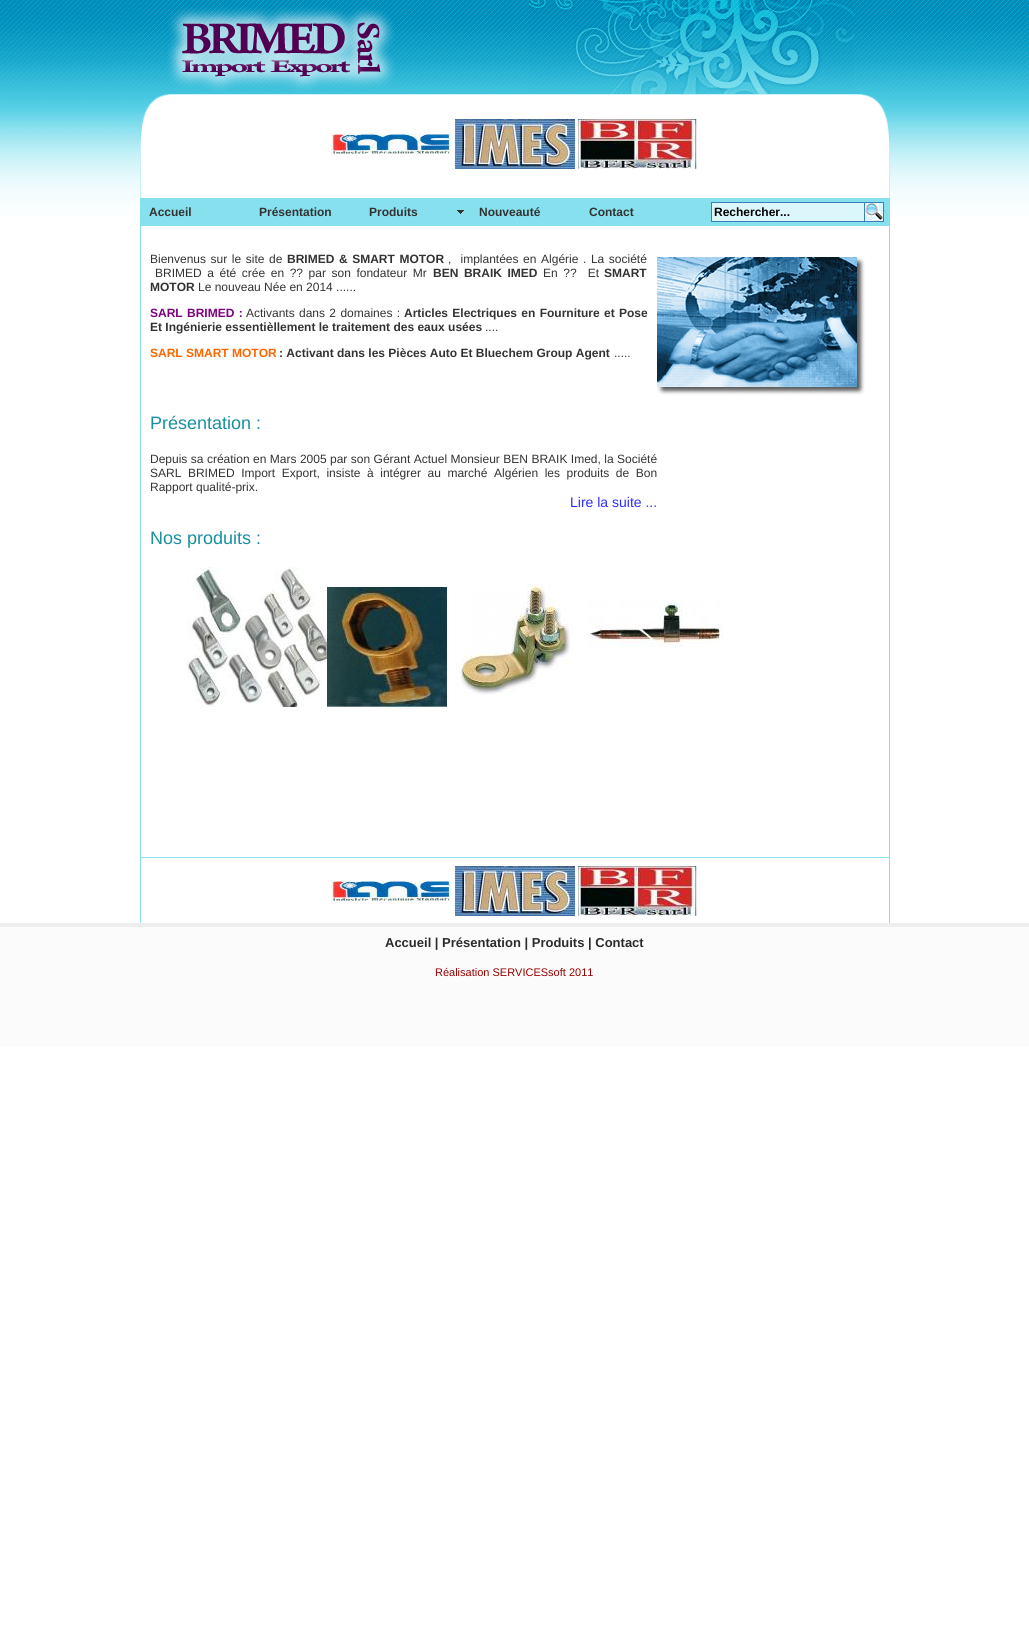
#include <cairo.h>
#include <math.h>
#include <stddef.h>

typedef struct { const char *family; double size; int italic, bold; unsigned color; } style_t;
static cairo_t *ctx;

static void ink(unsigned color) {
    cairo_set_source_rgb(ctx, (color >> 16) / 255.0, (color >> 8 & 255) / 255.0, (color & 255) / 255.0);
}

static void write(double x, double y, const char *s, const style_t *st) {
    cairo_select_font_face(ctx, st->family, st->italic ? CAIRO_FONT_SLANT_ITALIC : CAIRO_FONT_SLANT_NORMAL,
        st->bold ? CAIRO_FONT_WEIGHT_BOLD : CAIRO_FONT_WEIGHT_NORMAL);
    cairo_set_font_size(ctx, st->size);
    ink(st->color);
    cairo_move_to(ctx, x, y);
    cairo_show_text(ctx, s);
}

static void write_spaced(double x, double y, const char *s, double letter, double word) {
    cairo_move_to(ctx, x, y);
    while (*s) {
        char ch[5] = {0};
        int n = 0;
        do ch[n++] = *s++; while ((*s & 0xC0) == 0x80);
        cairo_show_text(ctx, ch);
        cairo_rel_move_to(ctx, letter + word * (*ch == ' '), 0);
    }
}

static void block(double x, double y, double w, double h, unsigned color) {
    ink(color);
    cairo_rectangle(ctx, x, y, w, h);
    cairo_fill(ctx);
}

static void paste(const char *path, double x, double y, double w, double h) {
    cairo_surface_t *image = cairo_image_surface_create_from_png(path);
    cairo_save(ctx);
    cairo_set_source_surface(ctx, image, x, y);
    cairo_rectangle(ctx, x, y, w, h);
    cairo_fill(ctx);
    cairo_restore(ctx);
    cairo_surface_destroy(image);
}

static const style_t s1 = {"Liberation Sans", 12, 0, 1, 0x333333};
static const style_t s2 = {"Liberation Sans", 12, 0, 1, 0x000000};
static const style_t s3 = {"Liberation Sans", 12, 0, 0, 0x333333};
static const style_t s4 = {"Liberation Sans", 12, 0, 1, 0xff6600};
static const style_t s5 = {"Liberation Sans", 18, 0, 0, 0x188fa0};
static const style_t s6 = {"Liberation Sans", 14, 0, 0, 0x2d2dff};
static const style_t s7 = {"Liberation Sans", 13, 0, 1, 0x2c2c2c};
static const style_t s8 = {"Liberation Sans", 11, 0, 0, 0x970000};

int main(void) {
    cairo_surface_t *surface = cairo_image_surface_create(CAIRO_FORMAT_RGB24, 1029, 1631);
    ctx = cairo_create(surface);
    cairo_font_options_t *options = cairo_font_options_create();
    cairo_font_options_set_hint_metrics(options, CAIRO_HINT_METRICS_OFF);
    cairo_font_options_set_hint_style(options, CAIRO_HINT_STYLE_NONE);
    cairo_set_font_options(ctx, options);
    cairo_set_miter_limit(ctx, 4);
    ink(0xffffff);
    cairo_paint(ctx);
    paste("pic1.png", 0, 0, 140, 216);
    paste("pic2.png", 140, 0, 750, 94);
    paste("pic3.png", 890, 0, 139, 216);
    paste("pic4.png", 140, 94, 750, 104);
    paste("pic5.png", 331, 133, 120, 21);
    paste("pic6.png", 455, 119, 120, 50);
    paste("pic7.png", 578, 119, 120, 50);
    block(140, 198, 750, 28, 0x87e0ed);
    write(149, 216, "Accueil", &s1);
    write(259, 216, "Présentation", &s1);
    paste("pic8.png", 457, 210, 7, 4);
    write(369, 216, "Produits", &s1);
    write(479, 216, "Nouveauté", &s1);
    write(589, 216, "Contact", &s1);
    block(712, 203, 152, 18, 0xdbf7fb);
    cairo_rectangle(ctx, 711.5, 202.5, 155, 19);
    ink(0x387fbd);
    cairo_set_line_width(ctx, 1);
    cairo_stroke(ctx);
    write(714, 216, "Rechercher...", &s2);
    block(865, 203, 18, 18, 0xdbf7fb);
    paste("pic9.png", 864, 202, 20, 20);
    block(140, 226, 1, 631, 0x87e0ed);
    cairo_select_font_face(ctx, "Liberation Sans", CAIRO_FONT_SLANT_NORMAL, CAIRO_FONT_WEIGHT_NORMAL);
    ink(0x333333);
    write_spaced(150, 263, "Bienvenus sur le site de", 0, 1.25);
    cairo_select_font_face(ctx, "Liberation Sans", CAIRO_FONT_SLANT_NORMAL, CAIRO_FONT_WEIGHT_BOLD);
    write_spaced(287, 263, "BRIMED & SMART MOTOR", 0, 1.25);
    cairo_select_font_face(ctx, "Liberation Sans", CAIRO_FONT_SLANT_NORMAL, CAIRO_FONT_WEIGHT_NORMAL);
    write_spaced(448, 263, ",  implantées en Algérie . La société", 0, 1.25);
    write_spaced(155, 277, "BRIMED a été crée en ?\077 par son fondateur Mr", 0, 2.25);
    cairo_select_font_face(ctx, "Liberation Sans", CAIRO_FONT_SLANT_NORMAL, CAIRO_FONT_WEIGHT_BOLD);
    write_spaced(433, 277, "BEN BRAIK IMED", 0, 2.25);
    cairo_select_font_face(ctx, "Liberation Sans", CAIRO_FONT_SLANT_NORMAL, CAIRO_FONT_WEIGHT_NORMAL);
    write_spaced(543, 277, "En ?\077  Et", 0, 2.25);
    write(604, 277, "SMART", &s1);
    write(150, 291, "MOTOR", &s1);
    write(198, 291, "Le nouveau Née en 2014 ......", &s3);
    cairo_select_font_face(ctx, "Liberation Sans", CAIRO_FONT_SLANT_NORMAL, CAIRO_FONT_WEIGHT_BOLD);
    ink(0x800080);
    write_spaced(150, 317, "SARL BRIMED :", 0, 1);
    cairo_select_font_face(ctx, "Liberation Sans", CAIRO_FONT_SLANT_NORMAL, CAIRO_FONT_WEIGHT_NORMAL);
    ink(0x333333);
    write_spaced(246, 317, "Activants dans 2 domaines :", 0, 1);
    cairo_select_font_face(ctx, "Liberation Sans", CAIRO_FONT_SLANT_NORMAL, CAIRO_FONT_WEIGHT_BOLD);
    write_spaced(404, 317, "Articles Electriques en Fourniture et Pose", 0, 1);
    write(150, 331, "Et Ingénierie essentièllement le traitement des eaux usées", &s1);
    write(485, 331, "....", &s3);
    write(150, 357, "SARL SMART MOTOR", &s4);
    write(279, 357, ": Activant dans les Pièces Auto Et Bluechem Group Agent", &s1);
    write(614, 357, ".....", &s3);
    paste("pic10.png", 657, 257, 208, 138);
    write(150, 429, "Présentation :", &s5);
    cairo_set_font_size(ctx, 12);
    ink(0x333333);
    write_spaced(150, 463, "Depuis sa création en Mars 2005 par son Gérant Actuel Monsieur BEN BRAIK Imed, la Société", 0, 0.1);
    write_spaced(150, 477, "SARL BRIMED Import Export, insiste à intégrer au marché Algérien les produits de Bon", 0, 3.25);
    write(150, 491, "Rapport qualité-prix.", &s3);
    write(570, 507, "Lire la suite ...", &s6);
    write(150, 544, "Nos produits :", &s5);
    paste("pic11.png", 187, 567, 140, 140);
    paste("pic12.png", 327, 587, 120, 120);
    paste("pic13.png", 456, 583, 118, 112);
    paste("pic14.png", 587, 599, 136, 48);
    block(889, 226, 1, 631, 0x87e0ed);
    block(140, 857, 750, 1, 0x87e0ed);
    block(140, 858, 1, 65, 0x87e0ed);
    paste("pic5.png", 331, 880, 120, 21);
    paste("pic6.png", 455, 866, 120, 50);
    paste("pic7.png", 578, 866, 120, 50);
    block(889, 858, 1, 65, 0x87e0ed);
    block(0, 923, 1029, 4, 0xeeeeee);
    block(0, 927, 1029, 120, 0xfbfbfb);
    write(385, 947, "Accueil | Présentation | Produits | Contact", &s7);
    write(435, 976, "Réalisation SERVICESsoft 2011", &s8);
    cairo_surface_write_to_png(surface, "screenshot.png");
    cairo_font_options_destroy(options);
    cairo_destroy(ctx);
    cairo_surface_destroy(surface);
    return 0;
}
